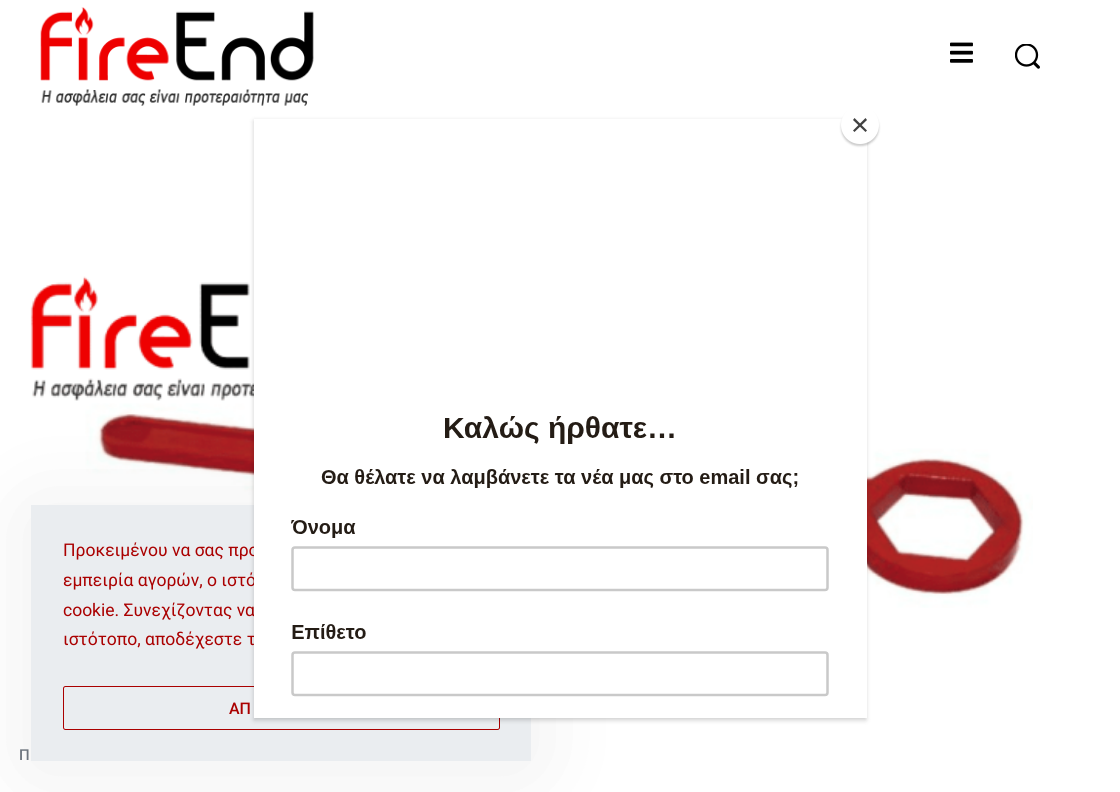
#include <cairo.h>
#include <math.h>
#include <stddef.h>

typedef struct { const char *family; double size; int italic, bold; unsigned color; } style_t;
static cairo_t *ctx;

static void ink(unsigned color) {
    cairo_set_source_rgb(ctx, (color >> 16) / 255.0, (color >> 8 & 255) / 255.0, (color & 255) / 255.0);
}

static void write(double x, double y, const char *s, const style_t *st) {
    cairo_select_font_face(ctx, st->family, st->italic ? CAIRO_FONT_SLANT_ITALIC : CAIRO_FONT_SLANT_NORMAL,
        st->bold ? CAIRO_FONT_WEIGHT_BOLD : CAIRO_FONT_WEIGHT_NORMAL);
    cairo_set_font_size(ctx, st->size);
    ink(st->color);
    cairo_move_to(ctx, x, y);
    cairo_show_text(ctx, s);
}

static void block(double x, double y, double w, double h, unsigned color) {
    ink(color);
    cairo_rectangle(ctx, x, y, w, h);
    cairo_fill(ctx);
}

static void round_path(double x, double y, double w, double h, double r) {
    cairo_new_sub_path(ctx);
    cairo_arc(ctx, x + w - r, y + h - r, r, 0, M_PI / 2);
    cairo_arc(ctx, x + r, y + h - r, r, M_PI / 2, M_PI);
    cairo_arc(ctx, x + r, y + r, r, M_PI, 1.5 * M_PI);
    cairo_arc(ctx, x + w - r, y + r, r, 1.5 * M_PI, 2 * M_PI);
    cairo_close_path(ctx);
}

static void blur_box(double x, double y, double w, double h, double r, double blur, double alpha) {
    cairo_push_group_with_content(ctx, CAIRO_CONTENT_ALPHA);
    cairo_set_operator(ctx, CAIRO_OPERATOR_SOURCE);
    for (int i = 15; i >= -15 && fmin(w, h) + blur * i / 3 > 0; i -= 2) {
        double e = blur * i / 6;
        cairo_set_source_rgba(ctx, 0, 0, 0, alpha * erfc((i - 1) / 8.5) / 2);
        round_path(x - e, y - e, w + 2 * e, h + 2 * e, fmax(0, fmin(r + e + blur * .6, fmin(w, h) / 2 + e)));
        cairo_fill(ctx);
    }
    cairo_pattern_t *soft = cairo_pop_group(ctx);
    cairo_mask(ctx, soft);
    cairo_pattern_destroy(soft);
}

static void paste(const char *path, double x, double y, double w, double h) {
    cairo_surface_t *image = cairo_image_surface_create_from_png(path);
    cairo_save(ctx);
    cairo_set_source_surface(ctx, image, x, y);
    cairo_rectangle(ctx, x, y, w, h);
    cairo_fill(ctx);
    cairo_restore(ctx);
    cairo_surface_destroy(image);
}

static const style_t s1 = {"Roboto", 17.5, 0, 0, 0xaa0000};
static const style_t s2 = {"Roboto Medium", 16, 0, 0, 0xaa0000};
static const style_t s3 = {"Roboto Medium", 15, 0, 0, 0x6d757e};

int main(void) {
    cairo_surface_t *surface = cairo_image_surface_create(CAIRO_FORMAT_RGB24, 1120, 792);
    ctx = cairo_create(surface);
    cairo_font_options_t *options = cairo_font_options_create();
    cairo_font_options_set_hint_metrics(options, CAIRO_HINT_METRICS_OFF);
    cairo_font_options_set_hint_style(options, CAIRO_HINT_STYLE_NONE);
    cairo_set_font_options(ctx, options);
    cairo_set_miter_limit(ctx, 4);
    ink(0xffffff);
    cairo_paint(ctx);
    paste("pic5.png", 30, 276, 1003, 332);
    ink(0x000000);
    blur_box(31, 511, 500, 257, 0, 50, 0.07);
    block(31, 505, 500, 256, 0xeaedf0);
    write(63, 556, "Προκειμένου να σας προ", &s1);
    write(63, 586, "εμπειρία αγορών, ο ιστό", &s1);
    write(63, 616, "cookie. Συνεχίζοντας να", &s1);
    write(63, 645, "ιστότοπο, αποδέχεστε τ", &s1);
    round_path(63.5, 686.5, 436, 43, 2);
    cairo_set_line_width(ctx, 1);
    cairo_stroke(ctx);
    write(229, 714, "ΑΠ", &s2);
    ink(0x000000);
    blur_box(254, 121, 612, 599, 0, 2.5, 0.2);
    paste("pic1.png", 254, 119, 613, 599);
    blur_box(841, 109, 38, 37, 18.5, 1, 0.2);
    ink(0xffffff);
    cairo_arc(ctx, 860, 125, 19, 0, 2 * M_PI);
    cairo_fill(ctx);
    ink(0x414141);
    cairo_new_path(ctx);
    cairo_move_to(ctx, 865.5, 118);
    cairo_line_to(ctx, 867, 120);
    cairo_line_to(ctx, 854.5, 132);
    cairo_line_to(ctx, 853, 130.5);
    cairo_close_path(ctx);
    cairo_fill(ctx);
    cairo_new_path(ctx);
    cairo_move_to(ctx, 853, 120);
    cairo_line_to(ctx, 854.5, 118);
    cairo_line_to(ctx, 867, 130.5);
    cairo_line_to(ctx, 865.5, 132);
    cairo_close_path(ctx);
    cairo_fill(ctx);
    paste("pic2.png", 40, 7, 274, 99);
    paste("pic3.png", 950, 42, 23, 21);
    paste("pic4.png", 1015, 44, 25, 25);
    write(19, 760, "Π", &s3);
    cairo_surface_write_to_png(surface, "screenshot.png");
    cairo_font_options_destroy(options);
    cairo_destroy(ctx);
    cairo_surface_destroy(surface);
    return 0;
}
